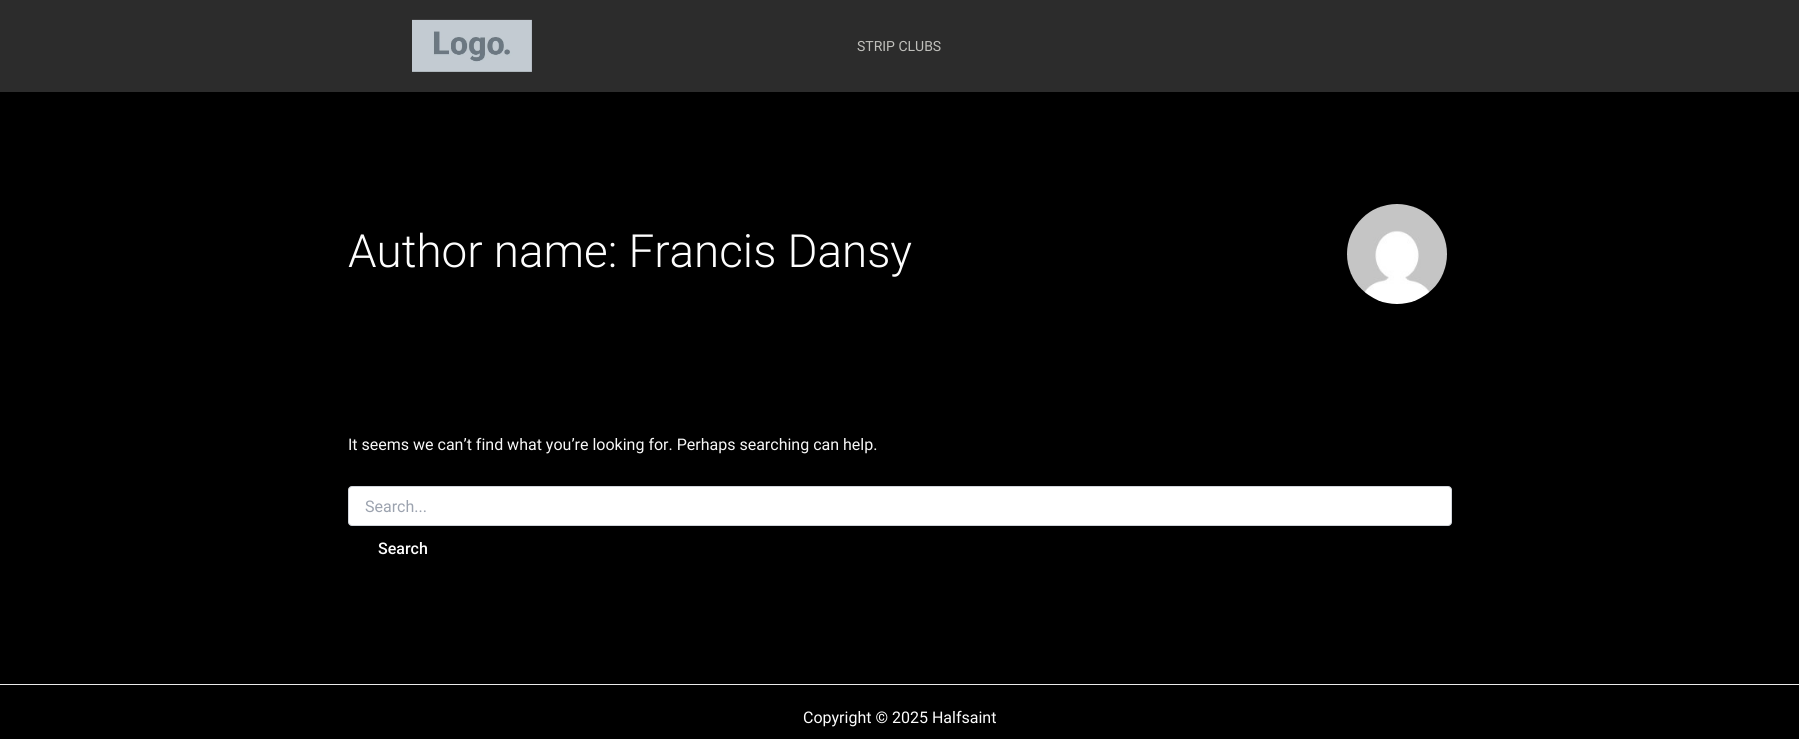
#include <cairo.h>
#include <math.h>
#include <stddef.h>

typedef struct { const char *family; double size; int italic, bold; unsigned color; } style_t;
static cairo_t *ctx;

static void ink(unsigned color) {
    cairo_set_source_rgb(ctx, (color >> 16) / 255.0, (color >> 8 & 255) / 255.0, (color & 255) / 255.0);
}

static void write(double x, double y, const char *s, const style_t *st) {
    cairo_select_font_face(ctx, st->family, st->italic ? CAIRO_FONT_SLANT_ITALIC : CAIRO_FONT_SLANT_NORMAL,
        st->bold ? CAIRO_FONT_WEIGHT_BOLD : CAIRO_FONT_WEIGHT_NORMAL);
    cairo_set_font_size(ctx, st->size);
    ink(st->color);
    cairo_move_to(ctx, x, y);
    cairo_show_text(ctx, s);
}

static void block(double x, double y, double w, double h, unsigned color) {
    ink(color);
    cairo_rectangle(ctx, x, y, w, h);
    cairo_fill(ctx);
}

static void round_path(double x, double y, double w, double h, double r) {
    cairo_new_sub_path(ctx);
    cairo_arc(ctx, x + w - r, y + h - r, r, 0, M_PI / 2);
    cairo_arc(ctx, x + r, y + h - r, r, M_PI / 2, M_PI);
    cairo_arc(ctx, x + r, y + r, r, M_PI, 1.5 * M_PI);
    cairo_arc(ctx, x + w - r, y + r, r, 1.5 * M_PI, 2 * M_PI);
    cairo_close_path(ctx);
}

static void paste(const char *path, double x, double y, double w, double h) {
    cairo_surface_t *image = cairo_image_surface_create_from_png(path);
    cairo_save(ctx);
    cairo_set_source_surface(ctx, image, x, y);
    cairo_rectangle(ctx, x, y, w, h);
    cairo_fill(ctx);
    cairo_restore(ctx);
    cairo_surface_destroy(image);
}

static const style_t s1 = {"Roboto", 14, 0, 0, 0xbfbfbb};
static const style_t s2 = {"Roboto Light", 45.75, 0, 0, 0xfdfdfd};
static const style_t s3 = {"Roboto", 16, 0, 0, 0xf7f7f7};
static const style_t s4 = {"Roboto", 16, 0, 0, 0x9ca3af};
static const style_t s5 = {"Roboto Medium", 16, 0, 0, 0xfdfdfd};
static const style_t s6 = {"Roboto", 16, 0, 0, 0xfdfdfd};

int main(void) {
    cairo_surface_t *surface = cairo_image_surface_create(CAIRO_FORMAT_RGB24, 1799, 739);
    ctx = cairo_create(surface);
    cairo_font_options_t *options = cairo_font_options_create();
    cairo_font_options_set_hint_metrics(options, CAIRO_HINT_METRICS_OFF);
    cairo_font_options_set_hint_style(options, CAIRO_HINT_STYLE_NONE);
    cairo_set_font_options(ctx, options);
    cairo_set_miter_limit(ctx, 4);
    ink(0x000000);
    cairo_paint(ctx);
    block(0, 0, 1799, 92, 0x2c2c2c);
    paste("pic1.png", 412, 19, 120, 53);
    write(857, 51, "STRIP CLUBS", &s1);
    write(348, 267, "Author name: Francis Dansy", &s2);
    paste("pic2.png", 1347, 204, 100, 100);
    write(348, 450, "It seems we can’t find what you’re looking for. Perhaps searching can help.", &s3);
    ink(0xffffff);
    round_path(348.5, 486.5, 1103, 39, 3.5);
    cairo_fill_preserve(ctx);
    ink(0xd1d5db);
    cairo_set_line_width(ctx, 1);
    cairo_stroke(ctx);
    write(365, 512, "Search...", &s4);
    write(378, 554, "Search", &s5);
    block(0, 684, 1799, 1, 0xeaeaea);
    write(803, 723, "Copyright © 2025 Halfsaint", &s6);
    cairo_surface_write_to_png(surface, "screenshot.png");
    cairo_font_options_destroy(options);
    cairo_destroy(ctx);
    cairo_surface_destroy(surface);
    return 0;
}
